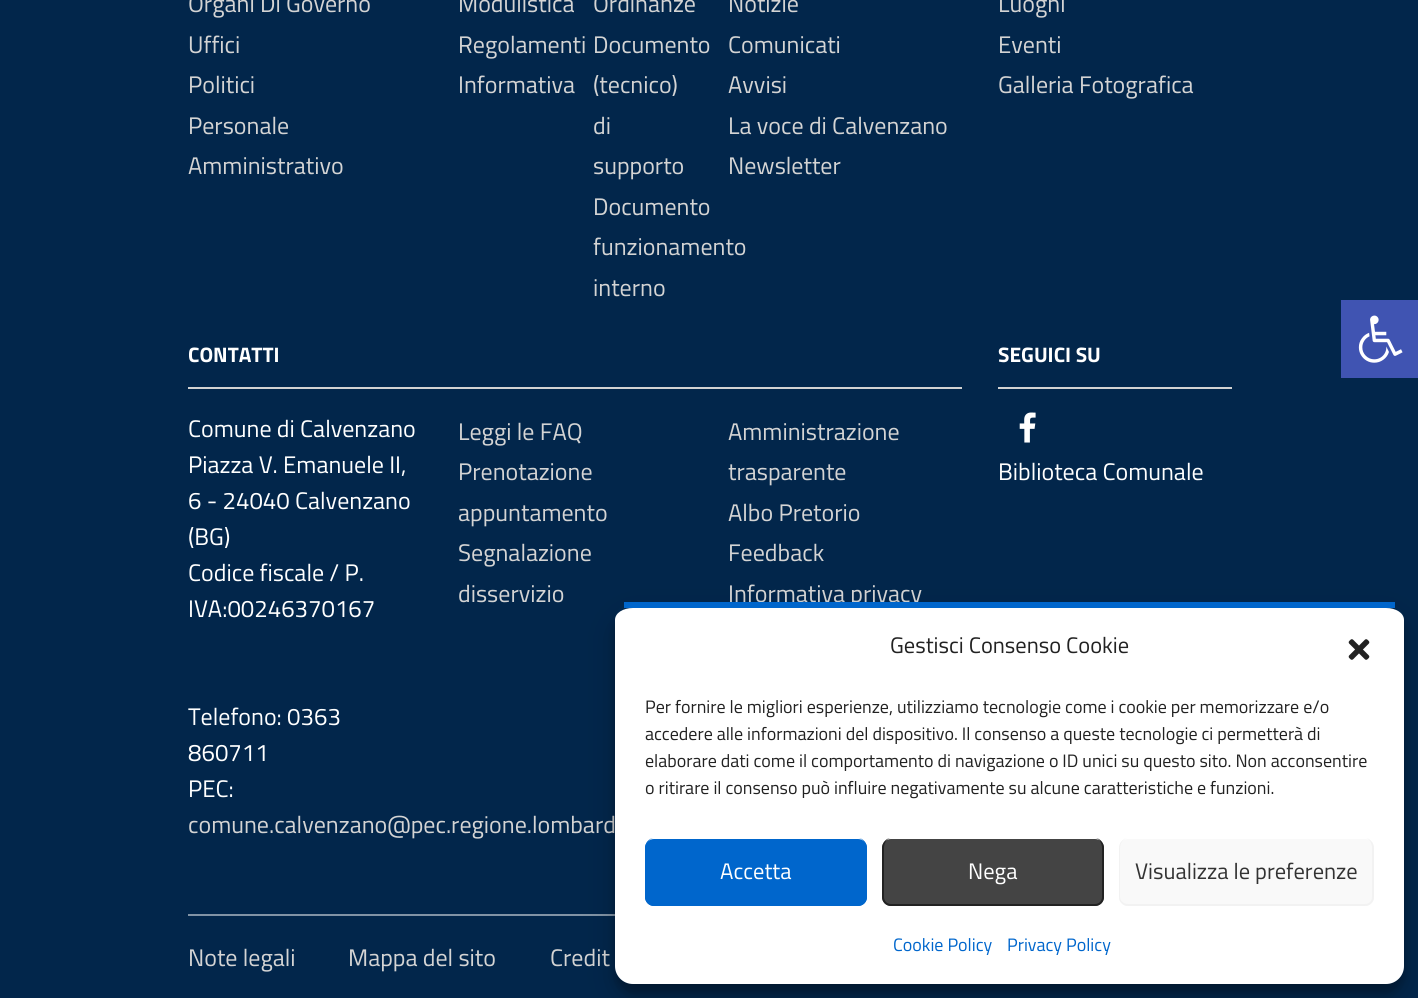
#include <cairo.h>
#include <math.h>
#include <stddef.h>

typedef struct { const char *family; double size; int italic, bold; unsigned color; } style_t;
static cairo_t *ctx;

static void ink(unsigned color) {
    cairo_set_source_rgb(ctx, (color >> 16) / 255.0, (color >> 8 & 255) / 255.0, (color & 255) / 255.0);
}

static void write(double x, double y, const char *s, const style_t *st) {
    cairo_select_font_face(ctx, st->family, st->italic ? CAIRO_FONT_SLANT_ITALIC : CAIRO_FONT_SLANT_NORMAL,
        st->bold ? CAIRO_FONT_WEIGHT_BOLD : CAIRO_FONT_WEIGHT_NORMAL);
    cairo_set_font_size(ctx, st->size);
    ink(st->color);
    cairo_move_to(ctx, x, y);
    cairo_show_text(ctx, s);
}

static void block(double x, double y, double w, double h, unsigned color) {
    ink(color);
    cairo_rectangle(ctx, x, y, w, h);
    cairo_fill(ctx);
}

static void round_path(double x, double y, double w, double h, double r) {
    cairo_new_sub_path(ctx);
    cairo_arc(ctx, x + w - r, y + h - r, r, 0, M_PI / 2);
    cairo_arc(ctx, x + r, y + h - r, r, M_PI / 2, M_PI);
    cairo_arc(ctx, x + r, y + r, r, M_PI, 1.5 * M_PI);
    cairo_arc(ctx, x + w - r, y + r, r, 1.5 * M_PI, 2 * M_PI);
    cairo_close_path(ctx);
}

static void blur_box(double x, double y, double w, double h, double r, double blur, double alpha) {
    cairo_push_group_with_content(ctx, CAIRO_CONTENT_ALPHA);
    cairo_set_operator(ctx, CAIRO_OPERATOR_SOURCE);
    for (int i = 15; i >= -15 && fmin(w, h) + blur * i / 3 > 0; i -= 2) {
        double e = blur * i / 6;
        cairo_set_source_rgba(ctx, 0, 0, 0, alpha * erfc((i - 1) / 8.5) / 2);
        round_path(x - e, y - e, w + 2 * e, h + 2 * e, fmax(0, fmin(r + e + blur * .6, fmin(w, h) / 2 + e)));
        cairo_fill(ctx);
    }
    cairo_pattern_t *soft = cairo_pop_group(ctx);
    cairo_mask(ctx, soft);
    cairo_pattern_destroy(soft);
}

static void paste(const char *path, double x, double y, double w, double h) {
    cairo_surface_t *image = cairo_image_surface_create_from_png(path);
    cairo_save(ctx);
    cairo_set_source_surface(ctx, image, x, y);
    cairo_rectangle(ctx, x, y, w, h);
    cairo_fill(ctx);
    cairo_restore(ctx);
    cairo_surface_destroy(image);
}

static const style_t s1 = {"Titillium Web", 24, 0, 0, 0xd4d4d4};
static const style_t s2 = {"Titillium Web", 21, 0, 1, 0xffffff};
static const style_t s3 = {"Titillium Web", 24, 0, 0, 0xffffff};
static const style_t s4 = {"Titillium Web", 22.5, 0, 0, 0x222222};
static const style_t s5 = {"Titillium Web", 18, 0, 0, 0x222222};
static const style_t s6 = {"Titillium Web", 22.5, 0, 0, 0xffffff};
static const style_t s7 = {"Titillium Web", 22.5, 0, 0, 0x333333};
static const style_t s8 = {"Titillium Web", 18, 0, 0, 0x0066cc};

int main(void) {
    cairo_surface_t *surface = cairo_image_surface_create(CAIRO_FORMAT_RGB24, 1418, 998);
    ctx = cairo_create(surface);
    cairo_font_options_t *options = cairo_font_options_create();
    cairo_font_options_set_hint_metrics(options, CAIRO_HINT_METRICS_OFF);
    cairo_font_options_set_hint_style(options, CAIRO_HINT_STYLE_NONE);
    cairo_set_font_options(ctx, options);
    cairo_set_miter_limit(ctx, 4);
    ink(0x02264b);
    cairo_paint(ctx);
    write(188, 12, "Organi Di Governo", &s1);
    write(188, 53, "Uffici", &s1);
    write(188, 93, "Politici", &s1);
    write(188, 134, "Personale", &s1);
    write(188, 174, "Amministrativo", &s1);
    write(458, 12, "Modulistica", &s1);
    write(458, 53, "Regolamenti", &s1);
    write(458, 93, "Informativa", &s1);
    write(593, 12, "Ordinanze", &s1);
    write(593, 53, "Documento", &s1);
    write(593, 93, "(tecnico)", &s1);
    write(593, 134, "di", &s1);
    write(593, 174, "supporto", &s1);
    write(593, 215, "Documento", &s1);
    write(593, 255, "funzionamento", &s1);
    write(593, 296, "interno", &s1);
    write(728, 12, "Notizie", &s1);
    write(728, 53, "Comunicati", &s1);
    write(728, 93, "Avvisi", &s1);
    write(728, 134, "La voce di Calvenzano", &s1);
    write(728, 174, "Newsletter", &s1);
    write(998, 12, "Luoghi", &s1);
    write(998, 53, "Eventi", &s1);
    write(998, 93, "Galleria Fotografica", &s1);
    block(188, 387, 774, 2, 0xd2d2d2);
    write(188, 362, "CONTATTI", &s2);
    write(188, 437, "Comune di Calvenzano", &s3);
    write(188, 473, "Piazza V. Emanuele II,", &s3);
    write(188, 509, "6 - 24040 Calvenzano", &s3);
    write(188, 545, "(BG)", &s3);
    write(188, 581, "Codice fiscale / P.", &s3);
    write(188, 617, "IVA:00246370167", &s3);
    write(188, 725, "Telefono: 0363", &s3);
    write(188, 761, "860711", &s3);
    write(188, 797, "PEC:", &s3);
    write(188, 833, "comune.calvenzano@pec.regione.lombard", &s1);
    write(458, 440, "Leggi le FAQ", &s1);
    write(458, 480, "Prenotazione", &s1);
    write(458, 521, "appuntamento", &s1);
    write(458, 561, "Segnalazione", &s1);
    write(458, 602, "disservizio", &s1);
    write(728, 440, "Amministrazione", &s1);
    write(728, 480, "trasparente", &s1);
    write(728, 521, "Albo Pretorio", &s1);
    write(728, 561, "Feedback", &s1);
    write(728, 602, "Informativa privacy", &s1);
    block(998, 387, 234, 2, 0xd2d2d2);
    write(998, 362, "SEGUICI SU", &s2);
    paste("pic1.png", 1019, 412, 17, 31);
    write(998, 480, "Biblioteca Comunale", &s3);
    block(188, 914, 427, 2, 0x8193a5);
    write(188, 966, "Note legali", &s1);
    write(348, 966, "Mappa del sito", &s1);
    write(550, 966, "Credit", &s1);
    block(1341, 300, 77, 78, 0x4054b2);
    paste("pic2.png", 1358, 315, 45, 48);
    cairo_save(ctx);
    cairo_set_fill_rule(ctx, CAIRO_FILL_RULE_EVEN_ODD);
    cairo_new_path(ctx);
    cairo_move_to(ctx, 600, 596);
    cairo_line_to(ctx, 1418, 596);
    cairo_line_to(ctx, 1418, 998);
    cairo_line_to(ctx, 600, 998);
    cairo_close_path(ctx);
    cairo_move_to(ctx, 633, 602);
    cairo_line_to(ctx, 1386, 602);
    cairo_curve_to(ctx, 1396, 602, 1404, 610, 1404, 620);
    cairo_line_to(ctx, 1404, 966);
    cairo_curve_to(ctx, 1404, 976, 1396, 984, 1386, 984);
    cairo_line_to(ctx, 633, 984);
    cairo_curve_to(ctx, 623, 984, 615, 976, 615, 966);
    cairo_line_to(ctx, 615, 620);
    cairo_curve_to(ctx, 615, 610, 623, 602, 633, 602);
    cairo_close_path(ctx);
    cairo_clip(ctx);
    ink(0x000000);
    blur_box(615, 611, 789, 382, 18, 4.5, 0.23);
    cairo_restore(ctx);
    cairo_save(ctx);
    cairo_set_fill_rule(ctx, CAIRO_FILL_RULE_EVEN_ODD);
    cairo_new_path(ctx);
    cairo_move_to(ctx, 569, 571);
    cairo_line_to(ctx, 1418, 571);
    cairo_line_to(ctx, 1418, 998);
    cairo_line_to(ctx, 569, 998);
    cairo_close_path(ctx);
    cairo_move_to(ctx, 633, 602);
    cairo_line_to(ctx, 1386, 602);
    cairo_curve_to(ctx, 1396, 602, 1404, 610, 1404, 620);
    cairo_line_to(ctx, 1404, 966);
    cairo_curve_to(ctx, 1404, 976, 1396, 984, 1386, 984);
    cairo_line_to(ctx, 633, 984);
    cairo_curve_to(ctx, 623, 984, 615, 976, 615, 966);
    cairo_line_to(ctx, 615, 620);
    cairo_curve_to(ctx, 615, 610, 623, 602, 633, 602);
    cairo_close_path(ctx);
    cairo_clip(ctx);
    ink(0x000000);
    blur_box(615, 617, 789, 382, 18, 15, 0.19);
    cairo_restore(ctx);
    ink(0xffffff);
    cairo_new_path(ctx);
    cairo_move_to(ctx, 633, 608);
    cairo_line_to(ctx, 1386, 608);
    cairo_curve_to(ctx, 1396, 608, 1404, 613, 1404, 620);
    cairo_line_to(ctx, 1404, 966);
    cairo_curve_to(ctx, 1404, 976, 1396, 984, 1386, 984);
    cairo_line_to(ctx, 633, 984);
    cairo_curve_to(ctx, 623, 984, 615, 976, 615, 966);
    cairo_line_to(ctx, 615, 620);
    cairo_curve_to(ctx, 615, 613, 623, 608, 633, 608);
    cairo_close_path(ctx);
    cairo_fill(ctx);
    block(624, 602, 771, 6, 0x0066cc);
    write(890, 653, "Gestisci Consenso Cookie", &s4);
    paste("pic3.png", 1348, 639, 22, 21);
    write(645, 713, "Per fornire le migliori esperienze, utilizziamo tecnologie come i cookie per memorizzare e/o", &s5);
    write(645, 740, "accedere alle informazioni del dispositivo. Il consenso a queste tecnologie ci permetterà di", &s5);
    write(645, 767, "elaborare dati come il comportamento di navigazione o ID unici su questo sito. Non acconsentire", &s5);
    write(645, 794, "o ritirare il consenso può influire negativamente su alcune caratteristiche e funzioni.", &s5);
    ink(0x0066cc);
    round_path(645, 839, 222, 67, 9);
    cairo_fill(ctx);
    cairo_set_fill_rule(ctx, CAIRO_FILL_RULE_EVEN_ODD);
    cairo_new_path(ctx);
    cairo_move_to(ctx, 654, 838);
    cairo_line_to(ctx, 858, 838);
    cairo_curve_to(ctx, 863, 838, 867, 843, 867, 848);
    cairo_line_to(ctx, 867, 897);
    cairo_curve_to(ctx, 867, 902, 863, 906, 858, 906);
    cairo_line_to(ctx, 654, 906);
    cairo_curve_to(ctx, 649, 906, 645, 902, 645, 897);
    cairo_line_to(ctx, 645, 848);
    cairo_curve_to(ctx, 645, 843, 649, 838, 654, 838);
    cairo_close_path(ctx);
    cairo_move_to(ctx, 654, 838);
    cairo_line_to(ctx, 858, 838);
    cairo_curve_to(ctx, 862, 838, 866, 843, 866, 848);
    cairo_line_to(ctx, 866, 897);
    cairo_curve_to(ctx, 866, 901, 862, 904, 858, 904);
    cairo_line_to(ctx, 654, 904);
    cairo_curve_to(ctx, 650, 904, 646, 901, 646, 897);
    cairo_line_to(ctx, 646, 848);
    cairo_curve_to(ctx, 646, 843, 650, 838, 654, 838);
    cairo_close_path(ctx);
    cairo_fill(ctx);
    write(720, 879, "Accetta", &s6);
    ink(0x444444);
    round_path(882, 839, 222, 67, 9);
    cairo_fill(ctx);
    ink(0x222222);
    cairo_new_path(ctx);
    cairo_move_to(ctx, 891, 838);
    cairo_line_to(ctx, 1095, 838);
    cairo_curve_to(ctx, 1100, 838, 1104, 843, 1104, 848);
    cairo_line_to(ctx, 1104, 897);
    cairo_curve_to(ctx, 1104, 902, 1100, 906, 1095, 906);
    cairo_line_to(ctx, 891, 906);
    cairo_curve_to(ctx, 886, 906, 882, 902, 882, 897);
    cairo_line_to(ctx, 882, 848);
    cairo_curve_to(ctx, 882, 843, 886, 838, 891, 838);
    cairo_close_path(ctx);
    cairo_move_to(ctx, 891, 838);
    cairo_line_to(ctx, 1095, 838);
    cairo_curve_to(ctx, 1099, 838, 1102, 843, 1102, 848);
    cairo_line_to(ctx, 1102, 897);
    cairo_curve_to(ctx, 1102, 901, 1099, 904, 1095, 904);
    cairo_line_to(ctx, 891, 904);
    cairo_curve_to(ctx, 887, 904, 884, 901, 884, 897);
    cairo_line_to(ctx, 884, 848);
    cairo_curve_to(ctx, 884, 843, 887, 838, 891, 838);
    cairo_close_path(ctx);
    cairo_fill(ctx);
    write(968, 879, "Nega", &s6);
    ink(0xf9f9f9);
    round_path(1119, 839, 255, 67, 9);
    cairo_fill(ctx);
    ink(0xf2f2f2);
    cairo_new_path(ctx);
    cairo_move_to(ctx, 1128, 838);
    cairo_line_to(ctx, 1365, 838);
    cairo_curve_to(ctx, 1370, 838, 1374, 843, 1374, 848);
    cairo_line_to(ctx, 1374, 897);
    cairo_curve_to(ctx, 1374, 902, 1370, 906, 1365, 906);
    cairo_line_to(ctx, 1128, 906);
    cairo_curve_to(ctx, 1123, 906, 1119, 902, 1119, 897);
    cairo_line_to(ctx, 1119, 848);
    cairo_curve_to(ctx, 1119, 843, 1123, 838, 1128, 838);
    cairo_close_path(ctx);
    cairo_move_to(ctx, 1128, 838);
    cairo_line_to(ctx, 1365, 838);
    cairo_curve_to(ctx, 1369, 838, 1372, 843, 1372, 848);
    cairo_line_to(ctx, 1372, 897);
    cairo_curve_to(ctx, 1372, 901, 1369, 904, 1365, 904);
    cairo_line_to(ctx, 1128, 904);
    cairo_curve_to(ctx, 1124, 904, 1120, 901, 1120, 897);
    cairo_line_to(ctx, 1120, 848);
    cairo_curve_to(ctx, 1120, 843, 1124, 838, 1128, 838);
    cairo_close_path(ctx);
    cairo_fill(ctx);
    write(1135, 879, "Visualizza le preferenze", &s7);
    write(893, 951, "Cookie Policy", &s8);
    write(1007, 951, "Privacy Policy", &s8);
    cairo_surface_write_to_png(surface, "screenshot.png");
    cairo_font_options_destroy(options);
    cairo_destroy(ctx);
    cairo_surface_destroy(surface);
    return 0;
}
